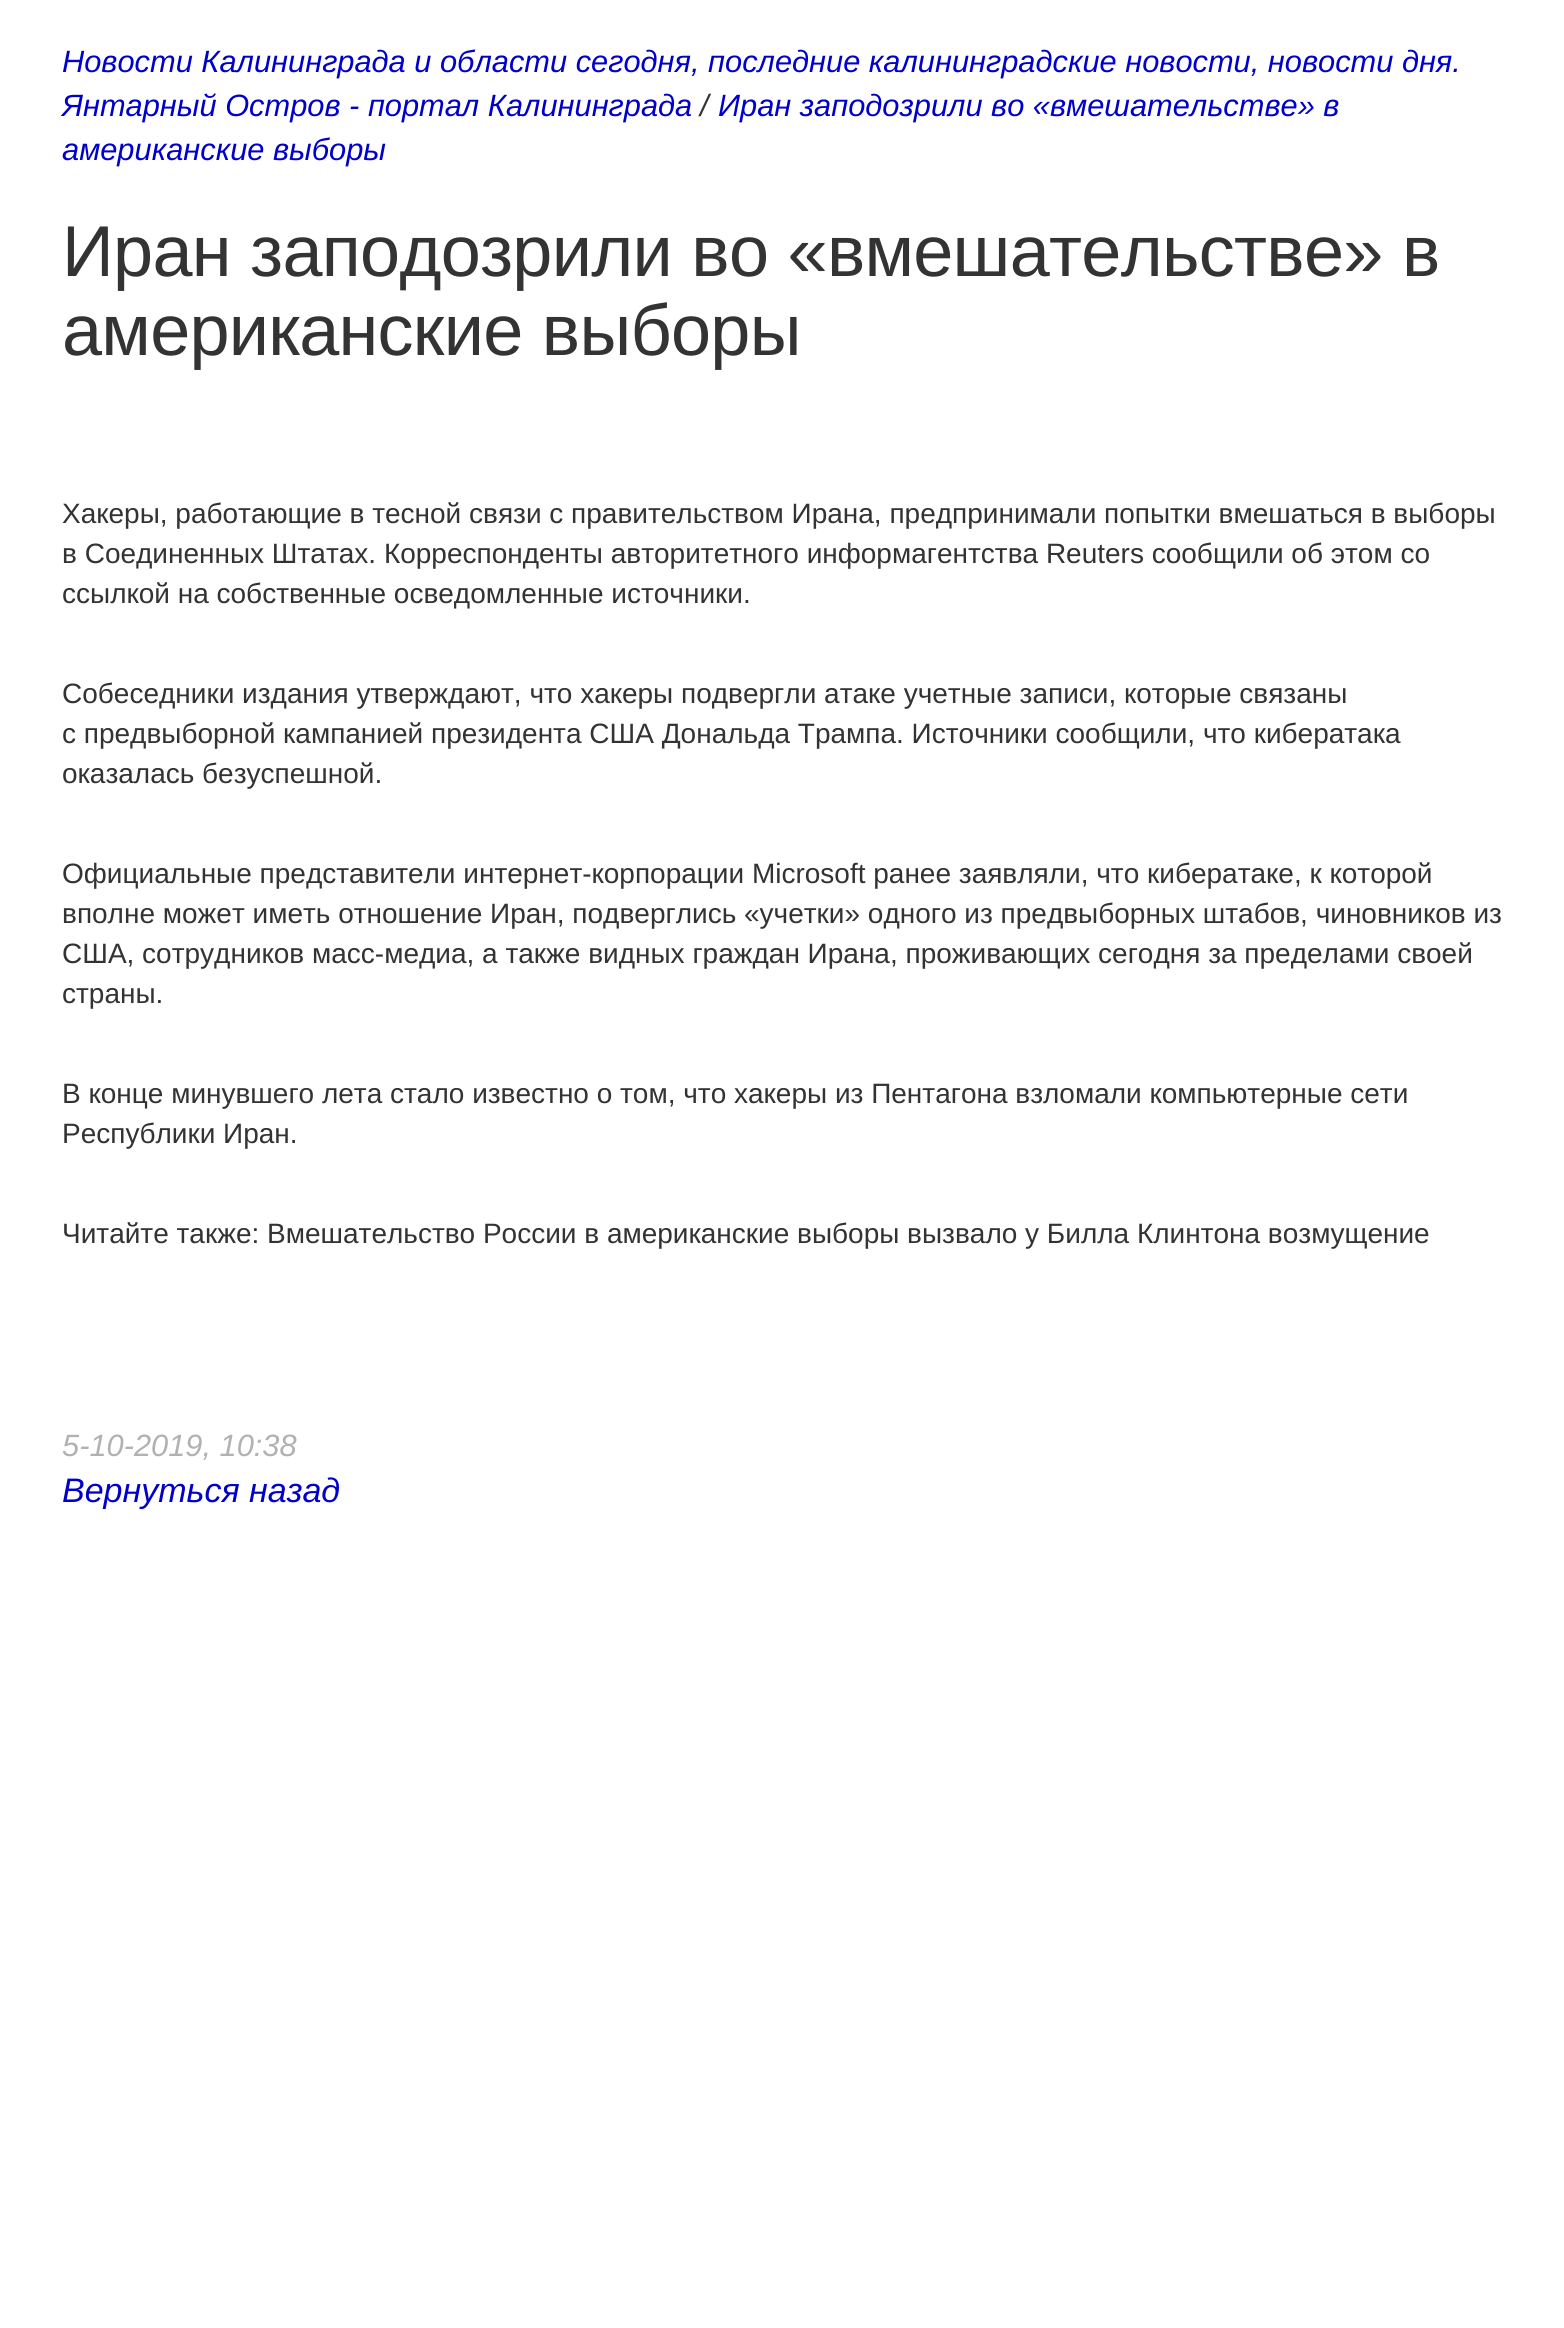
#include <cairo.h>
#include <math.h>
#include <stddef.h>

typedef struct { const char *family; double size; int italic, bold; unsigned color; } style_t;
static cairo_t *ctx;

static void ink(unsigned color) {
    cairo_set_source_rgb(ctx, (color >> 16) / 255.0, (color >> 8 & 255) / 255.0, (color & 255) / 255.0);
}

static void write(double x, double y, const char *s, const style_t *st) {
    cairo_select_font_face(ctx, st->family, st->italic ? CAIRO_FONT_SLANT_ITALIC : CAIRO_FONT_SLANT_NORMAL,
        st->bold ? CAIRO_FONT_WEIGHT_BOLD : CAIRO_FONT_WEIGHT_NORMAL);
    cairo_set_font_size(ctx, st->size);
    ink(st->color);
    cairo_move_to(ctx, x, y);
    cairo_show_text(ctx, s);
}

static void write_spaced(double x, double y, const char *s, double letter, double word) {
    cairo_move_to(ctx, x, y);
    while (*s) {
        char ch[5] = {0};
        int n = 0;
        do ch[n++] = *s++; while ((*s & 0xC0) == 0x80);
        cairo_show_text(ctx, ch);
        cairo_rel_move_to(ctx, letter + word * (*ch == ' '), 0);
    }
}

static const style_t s1 = {"Liberation Sans", 30.8, 1, 0, 0x0000cc};
static const style_t s2 = {"Liberation Sans", 30.8, 1, 0, 0x333333};
static const style_t s3 = {"Liberation Sans", 28, 0, 0, 0x333333};
static const style_t s4 = {"Liberation Sans", 30.8, 1, 0, 0xb1b1b1};
static const style_t s5 = {"Liberation Sans", 34, 1, 0, 0x0000cc};

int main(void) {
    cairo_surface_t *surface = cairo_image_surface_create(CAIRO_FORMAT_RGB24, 1564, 2328);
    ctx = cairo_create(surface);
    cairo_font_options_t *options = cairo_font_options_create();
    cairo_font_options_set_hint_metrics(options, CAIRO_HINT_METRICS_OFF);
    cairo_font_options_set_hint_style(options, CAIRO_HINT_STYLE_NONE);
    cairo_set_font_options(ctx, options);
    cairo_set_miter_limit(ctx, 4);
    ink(0xffffff);
    cairo_paint(ctx);
    write(62, 72, "Новости Калининграда и области сегодня, последние калининградские новости, новости дня.", &s1);
    write(62, 116, "Янтарный Остров - портал Калининграда", &s1);
    write(700, 116, "/", &s2);
    write(718, 116, "Иран заподозрили во «вмешательстве» в", &s1);
    write(62, 160, "американские выборы", &s1);
    cairo_select_font_face(ctx, "Liberation Sans", CAIRO_FONT_SLANT_NORMAL, CAIRO_FONT_WEIGHT_NORMAL);
    cairo_set_font_size(ctx, 72);
    ink(0x333333);
    write_spaced(62, 276, "Иран заподозрили во «вмешательстве» в", -0.7, 0);
    write_spaced(62, 355, "американские выборы", -0.7, 0);
    write(62, 523, "Хакеры, работающие в тесной связи с правительством Ирана, предпринимали попытки вмешаться в выборы", &s3);
    write(62, 563, "в Соединенных Штатах. Корреспонденты авторитетного информагентства Reuters сообщили об этом со", &s3);
    write(62, 603, "ссылкой на собственные осведомленные источники.", &s3);
    write(62, 703, "Собеседники издания утверждают, что хакеры подвергли атаке учетные записи, которые связаны", &s3);
    write(62, 743, "с предвыборной кампанией президента США Дональда Трампа. Источники сообщили, что кибератака", &s3);
    write(62, 783, "оказалась безуспешной.", &s3);
    write(62, 883, "Официальные представители интернет-корпорации Microsoft ранее заявляли, что кибератаке, к которой", &s3);
    write(62, 923, "вполне может иметь отношение Иран, подверглись «учетки» одного из предвыборных штабов, чиновников из", &s3);
    write(62, 963, "США, сотрудников масс-медиа, а также видных граждан Ирана, проживающих сегодня за пределами своей", &s3);
    write(62, 1003, "страны.", &s3);
    write(62, 1103, "В конце минувшего лета стало известно о том, что хакеры из Пентагона взломали компьютерные сети", &s3);
    write(62, 1143, "Республики Иран.", &s3);
    write(62, 1243, "Читайте также: Вмешательство России в американские выборы вызвало у Билла Клинтона возмущение", &s3);
    write(62, 1456, "5-10-2019, 10:38", &s4);
    write(62, 1502, "Вернуться назад", &s5);
    cairo_surface_write_to_png(surface, "screenshot.png");
    cairo_font_options_destroy(options);
    cairo_destroy(ctx);
    cairo_surface_destroy(surface);
    return 0;
}
